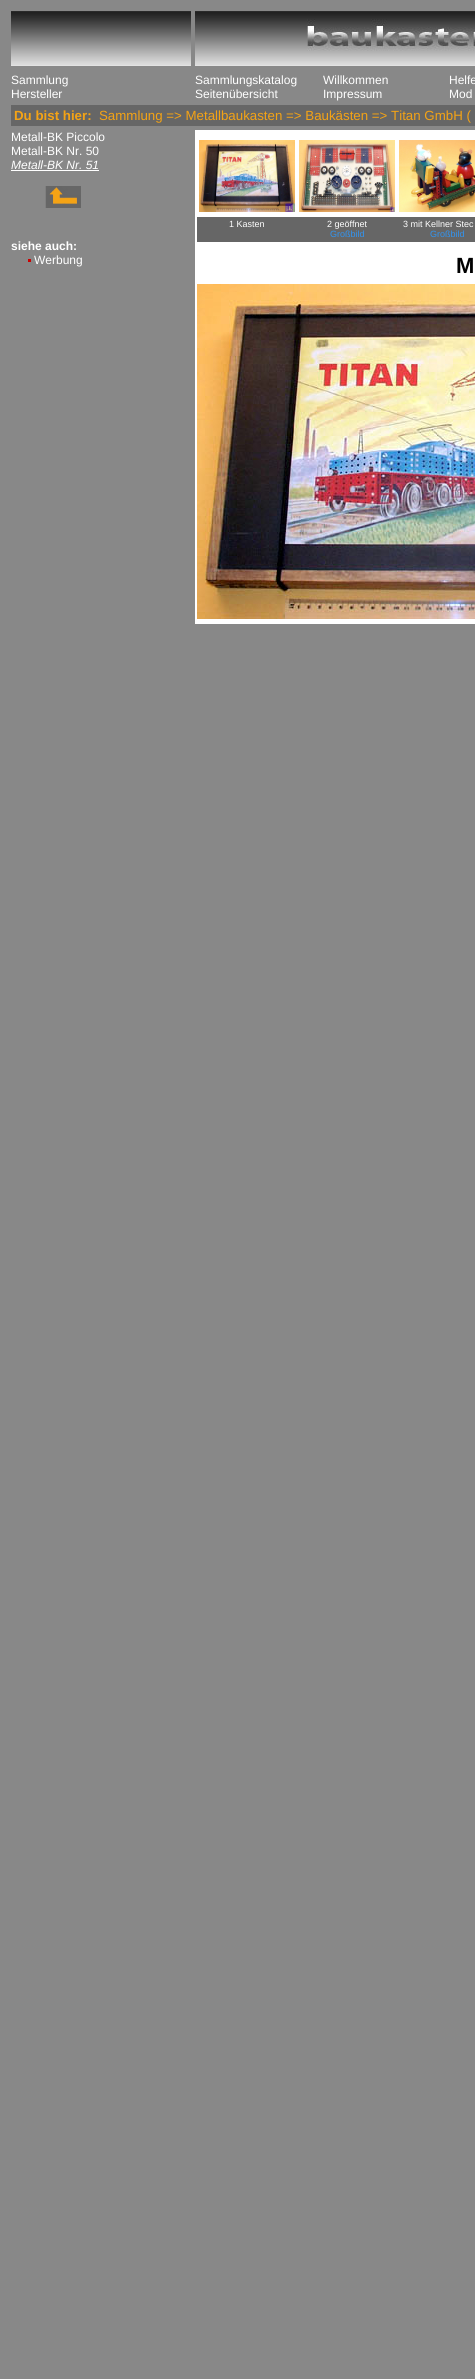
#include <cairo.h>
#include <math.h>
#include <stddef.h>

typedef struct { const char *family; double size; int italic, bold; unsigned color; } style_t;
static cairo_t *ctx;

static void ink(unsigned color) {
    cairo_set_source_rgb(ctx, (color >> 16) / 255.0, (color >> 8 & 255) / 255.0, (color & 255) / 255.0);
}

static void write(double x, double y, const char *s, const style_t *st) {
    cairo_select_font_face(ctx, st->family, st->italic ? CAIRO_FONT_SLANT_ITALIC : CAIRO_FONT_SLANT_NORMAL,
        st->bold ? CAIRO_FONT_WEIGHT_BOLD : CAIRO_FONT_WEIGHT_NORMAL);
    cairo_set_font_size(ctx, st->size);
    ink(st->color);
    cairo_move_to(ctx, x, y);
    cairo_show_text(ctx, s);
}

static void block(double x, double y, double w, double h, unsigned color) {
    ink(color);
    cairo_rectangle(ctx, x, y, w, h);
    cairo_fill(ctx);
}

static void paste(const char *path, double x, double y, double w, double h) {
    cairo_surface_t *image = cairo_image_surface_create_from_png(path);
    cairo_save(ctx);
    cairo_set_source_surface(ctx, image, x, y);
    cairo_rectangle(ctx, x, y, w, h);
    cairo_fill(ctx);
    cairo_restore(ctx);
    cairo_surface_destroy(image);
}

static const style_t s1 = {"Liberation Sans", 12, 0, 0, 0xffffff};
static const style_t s2 = {"Liberation Sans", 13.3, 0, 1, 0xf4a315};
static const style_t s3 = {"Liberation Sans", 13.3, 0, 0, 0xf4a315};
static const style_t s4 = {"Liberation Sans", 12, 1, 0, 0xffffff};
static const style_t s5 = {"Liberation Sans", 12, 0, 1, 0xffffff};
static const style_t s6 = {"Liberation Sans", 9, 0, 0, 0xffffff};
static const style_t s7 = {"Liberation Sans", 9, 0, 0, 0x3194f1};
static const style_t s8 = {"Liberation Sans", 22, 0, 1, 0x000000};

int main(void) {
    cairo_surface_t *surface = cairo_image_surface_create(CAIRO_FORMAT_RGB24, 475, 2379);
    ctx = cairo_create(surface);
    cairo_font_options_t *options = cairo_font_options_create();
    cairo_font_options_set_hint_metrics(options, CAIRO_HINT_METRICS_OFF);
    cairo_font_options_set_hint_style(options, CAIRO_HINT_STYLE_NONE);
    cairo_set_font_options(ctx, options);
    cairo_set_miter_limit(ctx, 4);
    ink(0x888888);
    cairo_paint(ctx);
    paste("pic1.png", 11, 11, 180, 55);
    paste("pic2.png", 195, 11, 280, 55);
    write(11, 84, "Sammlung", &s1);
    write(11, 98, "Hersteller", &s1);
    write(195, 84, "Sammlungskatalog", &s1);
    write(195, 98, "Seitenübersicht", &s1);
    write(323, 84, "Willkommen", &s1);
    write(323, 98, "Impressum", &s1);
    write(449, 84, "Helfe", &s1);
    write(449, 98, "Mod", &s1);
    block(11, 105, 464, 21, 0x666666);
    write(14, 120, "Du bist hier:", &s2);
    write(99, 120, "Sammlung => Metallbaukasten => Baukästen => Titan GmbH (", &s3);
    write(11, 141, "Metall-BK Piccolo", &s1);
    write(11, 155, "Metall-BK Nr. 50", &s1);
    write(11, 169, "Metall-BK Nr. 51", &s4);
    block(11, 170, 88, 1, 0xffffff);
    paste("pic3.png", 45, 186, 36, 22);
    write(11, 250, "siehe auch:", &s5);
    block(28, 259, 3, 3, 0xcc0000);
    write(34, 264, "Werbung", &s1);
    block(195, 130, 280, 494, 0xffffff);
    paste("pic4.png", 199, 140, 96, 72);
    paste("pic5.png", 299, 140, 96, 72);
    paste("pic6.png", 399, 140, 76, 72);
    block(197, 217, 278, 25, 0x666666);
    write(229, 227, "1 Kasten", &s6);
    write(327, 227, "2 geöffnet", &s6);
    write(330, 237, "Großbild", &s7);
    write(403, 227, "3 mit Kellner Stec", &s6);
    write(430, 237, "Großbild", &s7);
    write(456, 273, "M", &s8);
    paste("pic7.png", 197, 284, 278, 335);
    cairo_surface_write_to_png(surface, "screenshot.png");
    cairo_font_options_destroy(options);
    cairo_destroy(ctx);
    cairo_surface_destroy(surface);
    return 0;
}
